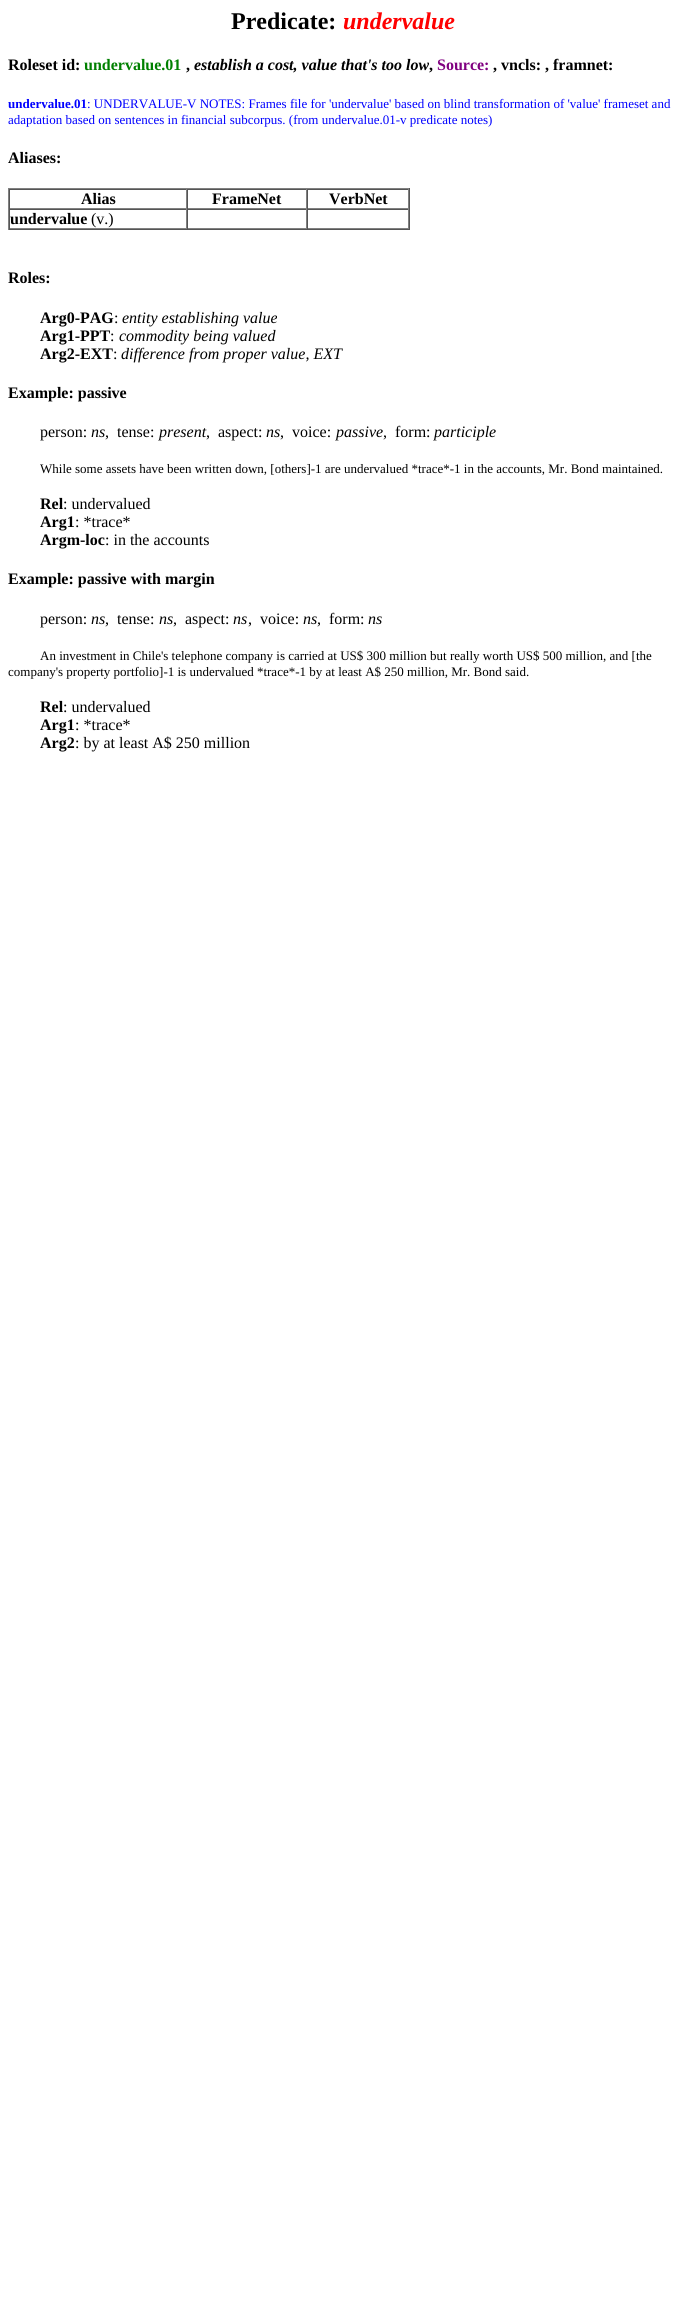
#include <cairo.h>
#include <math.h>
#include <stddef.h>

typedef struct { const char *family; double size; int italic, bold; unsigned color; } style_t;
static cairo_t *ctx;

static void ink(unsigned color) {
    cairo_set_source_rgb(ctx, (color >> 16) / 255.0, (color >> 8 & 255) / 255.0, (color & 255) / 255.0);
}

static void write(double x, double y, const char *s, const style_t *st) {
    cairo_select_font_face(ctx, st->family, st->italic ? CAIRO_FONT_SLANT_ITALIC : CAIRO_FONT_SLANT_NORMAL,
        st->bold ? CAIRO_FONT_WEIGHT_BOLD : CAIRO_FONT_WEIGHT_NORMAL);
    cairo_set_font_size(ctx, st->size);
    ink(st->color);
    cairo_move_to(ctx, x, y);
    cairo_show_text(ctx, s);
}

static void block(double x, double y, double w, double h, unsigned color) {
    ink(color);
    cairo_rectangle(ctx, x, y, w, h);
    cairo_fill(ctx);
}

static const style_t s1 = {"Liberation Serif", 24, 0, 1, 0x000000};
static const style_t s2 = {"Liberation Serif", 24, 1, 1, 0xff0000};
static const style_t s3 = {"Liberation Serif", 16, 0, 1, 0x000000};
static const style_t s4 = {"Liberation Serif", 16, 0, 1, 0x008000};
static const style_t s5 = {"Liberation Serif", 16, 1, 1, 0x000000};
static const style_t s6 = {"Liberation Serif", 16, 0, 1, 0x800080};
static const style_t s7 = {"Liberation Serif", 13, 0, 1, 0x0000ff};
static const style_t s8 = {"Liberation Serif", 13, 0, 0, 0x0000ff};
static const style_t s9 = {"Liberation Serif", 16, 0, 0, 0x000000};
static const style_t s10 = {"Liberation Serif", 16, 1, 0, 0x000000};
static const style_t s11 = {"Liberation Serif", 13, 0, 0, 0x000000};

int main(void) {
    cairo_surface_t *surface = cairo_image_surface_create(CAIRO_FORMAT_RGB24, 686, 2312);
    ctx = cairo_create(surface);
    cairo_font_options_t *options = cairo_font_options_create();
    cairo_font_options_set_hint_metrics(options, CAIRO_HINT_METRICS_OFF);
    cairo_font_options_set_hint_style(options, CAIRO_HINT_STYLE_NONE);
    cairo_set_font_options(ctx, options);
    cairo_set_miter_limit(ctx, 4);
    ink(0xffffff);
    cairo_paint(ctx);
    write(231, 29, "Predicate:", &s1);
    write(343, 29, "undervalue", &s2);
    write(8, 70, "Roleset id:", &s3);
    write(84, 70, "undervalue.01", &s4);
    write(186, 70, ",", &s3);
    write(194, 70, "establish a cost, value that's too low", &s5);
    write(429, 70, ",", &s3);
    write(437, 70, "Source:", &s6);
    write(493, 70, ", vncls: , framnet:", &s3);
    write(8, 108, "undervalue.01", &s7);
    write(87, 108, ": UNDERVALUE-V NOTES: Frames file for 'undervalue' based on blind transformation of 'value' frameset and", &s8);
    write(8, 124, "adaptation based on sentences in financial subcorpus. (from undervalue.01-v predicate notes)", &s8);
    write(8, 163, "Aliases:", &s3);
    block(8, 188, 402, 1, 0x808080);
    block(409, 188, 1, 42, 0x555555);
    block(8, 229, 402, 1, 0x555555);
    block(8, 188, 1, 42, 0x808080);
    block(9, 189, 400, 1, 0x555555);
    block(186, 189, 1, 20, 0x808080);
    block(9, 208, 178, 1, 0x808080);
    block(9, 189, 1, 20, 0x555555);
    write(81, 204, "Alias", &s3);
    block(306, 189, 1, 20, 0x808080);
    block(187, 208, 120, 1, 0x808080);
    block(187, 189, 1, 20, 0x555555);
    write(212, 204, "FrameNet", &s3);
    block(408, 189, 1, 20, 0x808080);
    block(307, 208, 102, 1, 0x808080);
    block(307, 189, 1, 20, 0x555555);
    write(329, 204, "VerbNet", &s3);
    block(9, 209, 400, 1, 0x555555);
    block(186, 209, 1, 20, 0x808080);
    block(9, 228, 178, 1, 0x808080);
    block(9, 209, 1, 20, 0x555555);
    write(10, 224, "undervalue", &s3);
    write(91, 224, "(v.)", &s9);
    block(306, 209, 1, 20, 0x808080);
    block(187, 228, 120, 1, 0x808080);
    block(187, 209, 1, 20, 0x555555);
    block(408, 209, 1, 20, 0x808080);
    block(307, 228, 102, 1, 0x808080);
    block(307, 209, 1, 20, 0x555555);
    write(8, 283, "Roles:", &s3);
    write(40, 323, "Arg0-PAG", &s3);
    write(114, 323, ":", &s9);
    write(122, 323, "entity establishing value", &s10);
    write(40, 341, "Arg1-PPT", &s3);
    write(110, 341, ":", &s9);
    write(119, 341, "commodity being valued", &s10);
    write(40, 359, "Arg2-EXT", &s3);
    write(113, 359, ":", &s9);
    write(121, 359, "difference from proper value, EXT", &s10);
    write(8, 398, "Example: passive", &s3);
    write(40, 437, "person:", &s9);
    write(91, 437, "ns", &s10);
    write(105, 437, ",  tense:", &s9);
    write(159, 437, "present", &s10);
    write(206, 437, ",  aspect:", &s9);
    write(266, 437, "ns", &s10);
    write(280, 437, ",  voice:", &s9);
    write(336, 437, "passive", &s10);
    write(383, 437, ",  form:", &s9);
    write(434, 437, "participle", &s10);
    write(40, 473, "While some assets have been written down, [others]-1 are undervalued *trace*-1 in the accounts, Mr. Bond maintained.", &s11);
    write(40, 509, "Rel", &s3);
    write(63, 509, ": undervalued", &s9);
    write(40, 527, "Arg1", &s3);
    write(75, 527, ": *trace*", &s9);
    write(40, 545, "Argm-loc", &s3);
    write(105, 545, ": in the accounts", &s9);
    write(8, 584, "Example: passive with margin", &s3);
    write(40, 624, "person:", &s9);
    write(91, 624, "ns", &s10);
    write(105, 624, ",  tense:", &s9);
    write(159, 624, "ns", &s10);
    write(173, 624, ",  aspect:", &s9);
    write(233, 624, "ns", &s10);
    write(248, 624, ",  voice:", &s9);
    write(303, 624, "ns", &s10);
    write(317, 624, ",  form:", &s9);
    write(368, 624, "ns", &s10);
    write(40, 660, "An investment in Chile's telephone company is carried at US$ 300 million but really worth US$ 500 million, and [the", &s11);
    write(8, 676, "company's property portfolio]-1 is undervalued *trace*-1 by at least A$ 250 million, Mr. Bond said.", &s11);
    write(40, 712, "Rel", &s3);
    write(63, 712, ": undervalued", &s9);
    write(40, 730, "Arg1", &s3);
    write(75, 730, ": *trace*", &s9);
    write(40, 748, "Arg2", &s3);
    write(75, 748, ": by at least A$ 250 million", &s9);
    cairo_surface_write_to_png(surface, "screenshot.png");
    cairo_font_options_destroy(options);
    cairo_destroy(ctx);
    cairo_surface_destroy(surface);
    return 0;
}
